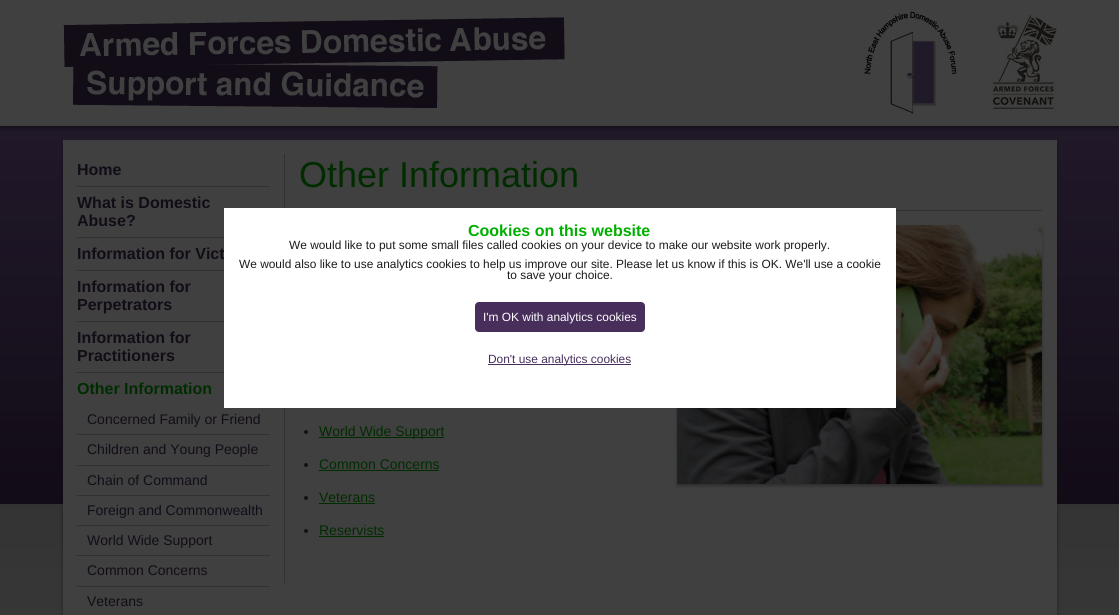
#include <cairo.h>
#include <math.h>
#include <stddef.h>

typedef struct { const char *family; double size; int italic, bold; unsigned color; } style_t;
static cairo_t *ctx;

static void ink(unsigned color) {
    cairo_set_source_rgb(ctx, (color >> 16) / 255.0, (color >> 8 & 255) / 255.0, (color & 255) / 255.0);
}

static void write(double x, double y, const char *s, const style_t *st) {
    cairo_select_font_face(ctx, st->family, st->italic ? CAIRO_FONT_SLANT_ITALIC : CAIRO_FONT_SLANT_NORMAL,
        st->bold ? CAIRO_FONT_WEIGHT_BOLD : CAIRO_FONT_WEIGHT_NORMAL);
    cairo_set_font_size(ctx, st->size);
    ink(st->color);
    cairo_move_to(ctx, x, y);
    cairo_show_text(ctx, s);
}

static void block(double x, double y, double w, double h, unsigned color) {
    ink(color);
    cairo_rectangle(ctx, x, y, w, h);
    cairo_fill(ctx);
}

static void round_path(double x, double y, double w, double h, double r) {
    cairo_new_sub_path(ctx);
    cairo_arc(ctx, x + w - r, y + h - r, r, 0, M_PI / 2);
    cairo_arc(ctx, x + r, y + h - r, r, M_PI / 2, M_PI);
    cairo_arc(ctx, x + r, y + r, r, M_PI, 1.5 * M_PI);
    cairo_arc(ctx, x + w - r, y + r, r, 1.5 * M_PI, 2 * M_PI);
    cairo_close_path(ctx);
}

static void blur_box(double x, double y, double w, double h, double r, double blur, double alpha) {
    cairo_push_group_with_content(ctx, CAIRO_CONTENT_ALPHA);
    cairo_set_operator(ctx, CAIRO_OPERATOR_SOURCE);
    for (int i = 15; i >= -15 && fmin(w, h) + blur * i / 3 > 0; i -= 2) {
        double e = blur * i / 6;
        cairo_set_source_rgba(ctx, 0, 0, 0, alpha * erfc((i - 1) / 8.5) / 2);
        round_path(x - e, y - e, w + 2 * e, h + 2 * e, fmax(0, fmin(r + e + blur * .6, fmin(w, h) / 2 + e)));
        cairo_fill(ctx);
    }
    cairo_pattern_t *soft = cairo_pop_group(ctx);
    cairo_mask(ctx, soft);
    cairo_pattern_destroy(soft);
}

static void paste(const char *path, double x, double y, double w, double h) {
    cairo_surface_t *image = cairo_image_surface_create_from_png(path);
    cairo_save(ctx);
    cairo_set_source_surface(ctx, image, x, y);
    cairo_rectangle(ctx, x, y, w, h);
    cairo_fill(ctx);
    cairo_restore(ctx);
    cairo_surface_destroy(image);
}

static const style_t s1 = {"Liberation Sans", 16, 0, 1, 0x120c17};
static const style_t s2 = {"Liberation Sans", 16, 0, 1, 0x002c00};
static const style_t s3 = {"Liberation Sans", 14, 0, 0, 0x120c17};
static const style_t s4 = {"Liberation Sans", 36, 0, 0, 0x002c00};
static const style_t s5 = {"Liberation Sans", 14, 0, 0, 0x002c00};
static const style_t s6 = {"Liberation Sans", 16, 0, 1, 0x00af00};
static const style_t s7 = {"Liberation Sans", 11.9, 0, 0, 0x1b1b1b};
static const style_t s8 = {"Liberation Sans", 11.9, 0, 0, 0xffffff};
static const style_t s9 = {"Liberation Sans", 11.9, 0, 0, 0x472e5b};

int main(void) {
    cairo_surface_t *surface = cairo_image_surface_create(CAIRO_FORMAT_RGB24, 1119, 615);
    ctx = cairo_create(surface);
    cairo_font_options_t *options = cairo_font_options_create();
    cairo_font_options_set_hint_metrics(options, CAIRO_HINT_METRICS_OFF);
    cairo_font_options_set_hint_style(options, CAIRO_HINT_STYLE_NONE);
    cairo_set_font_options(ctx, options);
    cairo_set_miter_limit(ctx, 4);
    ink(0x404040);
    cairo_paint(ctx);
    paste("pic1.png", 0, 124, 1119, 491);
    paste("pic2.png", 63, 17, 502, 91);
    paste("pic3.png", 864, 11, 93, 103);
    paste("pic4.png", 989, 15, 68, 94);
    ink(0x000000);
    blur_box(63, 144, 994, 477, 0, 2, 0.4);
    block(63, 140, 994, 475, 0x404040);
    block(77, 186, 193, 1, 0x313131);
    write(77, 175, "Home", &s1);
    block(77, 237, 147, 1, 0x313131);
    write(77, 208, "What is Domestic", &s1);
    write(77, 226, "Abuse?", &s1);
    block(77, 270, 147, 1, 0x313131);
    write(77, 259, "Information for Vict", &s1);
    block(77, 321, 147, 1, 0x313131);
    write(77, 292, "Information for", &s1);
    write(77, 310, "Perpetrators", &s1);
    block(77, 372, 147, 1, 0x313131);
    write(77, 343, "Information for", &s1);
    write(77, 361, "Practitioners", &s1);
    write(77, 394, "Other Information", &s2);
    block(77, 434, 193, 1, 0x313131);
    write(87, 424, "Concerned Family or Friend", &s3);
    block(77, 465, 193, 1, 0x313131);
    write(87, 454, "Children and Young People", &s3);
    block(77, 495, 193, 1, 0x313131);
    write(87, 485, "Chain of Command", &s3);
    block(77, 525, 193, 1, 0x313131);
    write(87, 515, "Foreign and Commonwealth", &s3);
    block(77, 555, 193, 1, 0x313131);
    write(87, 545, "World Wide Support", &s3);
    block(77, 586, 193, 1, 0x313131);
    write(87, 575, "Common Concerns", &s3);
    write(87, 606, "Veterans", &s3);
    block(284, 154, 1, 429, 0x313131);
    block(896, 210, 146, 1, 0x313131);
    write(299, 187, "Other Information", &s4);
    ink(0x131313);
    cairo_new_path(ctx);
    cairo_arc(ctx, 306, 432, 2, 0, 2 * M_PI);
    cairo_fill(ctx);
    block(319, 437, 125, 1, 0x002c00);
    write(319, 436, "World Wide Support", &s5);
    ink(0x131313);
    cairo_new_path(ctx);
    cairo_arc(ctx, 306, 465, 2, 0, 2 * M_PI);
    cairo_fill(ctx);
    write(319, 469, "Common Concerns", &s5);
    block(319, 470, 120, 1, 0x002c00);
    ink(0x131313);
    cairo_new_path(ctx);
    cairo_arc(ctx, 306, 498, 2, 0, 2 * M_PI);
    cairo_fill(ctx);
    write(319, 502, "Veterans", &s5);
    block(319, 503, 56, 1, 0x002c00);
    ink(0x131313);
    cairo_new_path(ctx);
    cairo_arc(ctx, 306, 531, 2, 0, 2 * M_PI);
    cairo_fill(ctx);
    write(319, 535, "Reservists", &s5);
    block(319, 536, 65, 1, 0x002c00);
    ink(0x000000);
    blur_box(677, 227, 365, 259, 0, 1.5, 0.3);
    paste("pic5.png", 677, 225, 365, 259);
    block(224, 208, 672, 200, 0xffffff);
    write(468, 236, "Cookies on this website", &s6);
    write(289, 249, "We would like to put some small files called cookies on your device to make our website work properly.", &s7);
    write(239, 268, "We would also like to use analytics cookies to help us improve our site. Please let us know if this is OK. We'll use a cookie", &s7);
    write(507, 279, "to save your choice.", &s7);
    ink(0x472e5b);
    round_path(475.5, 302.5, 169, 29, 3.5);
    cairo_fill_preserve(ctx);
    cairo_set_line_width(ctx, 1);
    cairo_stroke(ctx);
    write(483, 321, "I'm OK with analytics cookies", &s8);
    block(488, 364, 143, 1, 0x472e5b);
    write(488, 363, "Don't use analytics cookies", &s9);
    cairo_surface_write_to_png(surface, "screenshot.png");
    cairo_font_options_destroy(options);
    cairo_destroy(ctx);
    cairo_surface_destroy(surface);
    return 0;
}
